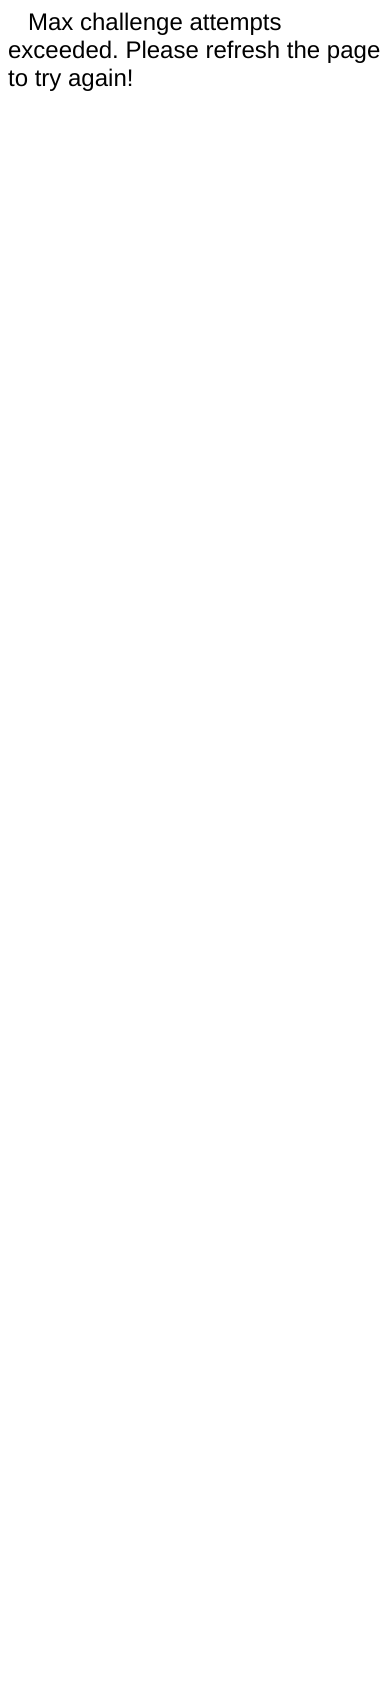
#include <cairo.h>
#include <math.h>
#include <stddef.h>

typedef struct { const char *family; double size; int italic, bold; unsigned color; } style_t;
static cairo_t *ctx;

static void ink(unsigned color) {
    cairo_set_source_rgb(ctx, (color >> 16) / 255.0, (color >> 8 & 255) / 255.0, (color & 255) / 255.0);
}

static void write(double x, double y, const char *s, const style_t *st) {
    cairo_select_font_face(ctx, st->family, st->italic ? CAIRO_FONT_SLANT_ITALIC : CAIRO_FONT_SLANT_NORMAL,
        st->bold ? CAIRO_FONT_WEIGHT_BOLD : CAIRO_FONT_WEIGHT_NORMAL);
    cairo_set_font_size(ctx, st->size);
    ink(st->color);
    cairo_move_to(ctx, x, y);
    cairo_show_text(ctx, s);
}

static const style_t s1 = {"Liberation Sans", 24, 0, 0, 0x000000};

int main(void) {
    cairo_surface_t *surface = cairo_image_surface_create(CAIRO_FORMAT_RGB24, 390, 1705);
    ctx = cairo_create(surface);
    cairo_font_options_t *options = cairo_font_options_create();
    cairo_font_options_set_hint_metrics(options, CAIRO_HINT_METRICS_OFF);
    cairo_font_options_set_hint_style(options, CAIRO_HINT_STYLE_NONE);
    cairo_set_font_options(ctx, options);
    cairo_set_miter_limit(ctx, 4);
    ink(0xffffff);
    cairo_paint(ctx);
    write(28, 30, "Max challenge attempts", &s1);
    write(8, 58, "exceeded. Please refresh the page", &s1);
    write(8, 86, "to try again!", &s1);
    cairo_surface_write_to_png(surface, "screenshot.png");
    cairo_font_options_destroy(options);
    cairo_destroy(ctx);
    cairo_surface_destroy(surface);
    return 0;
}
